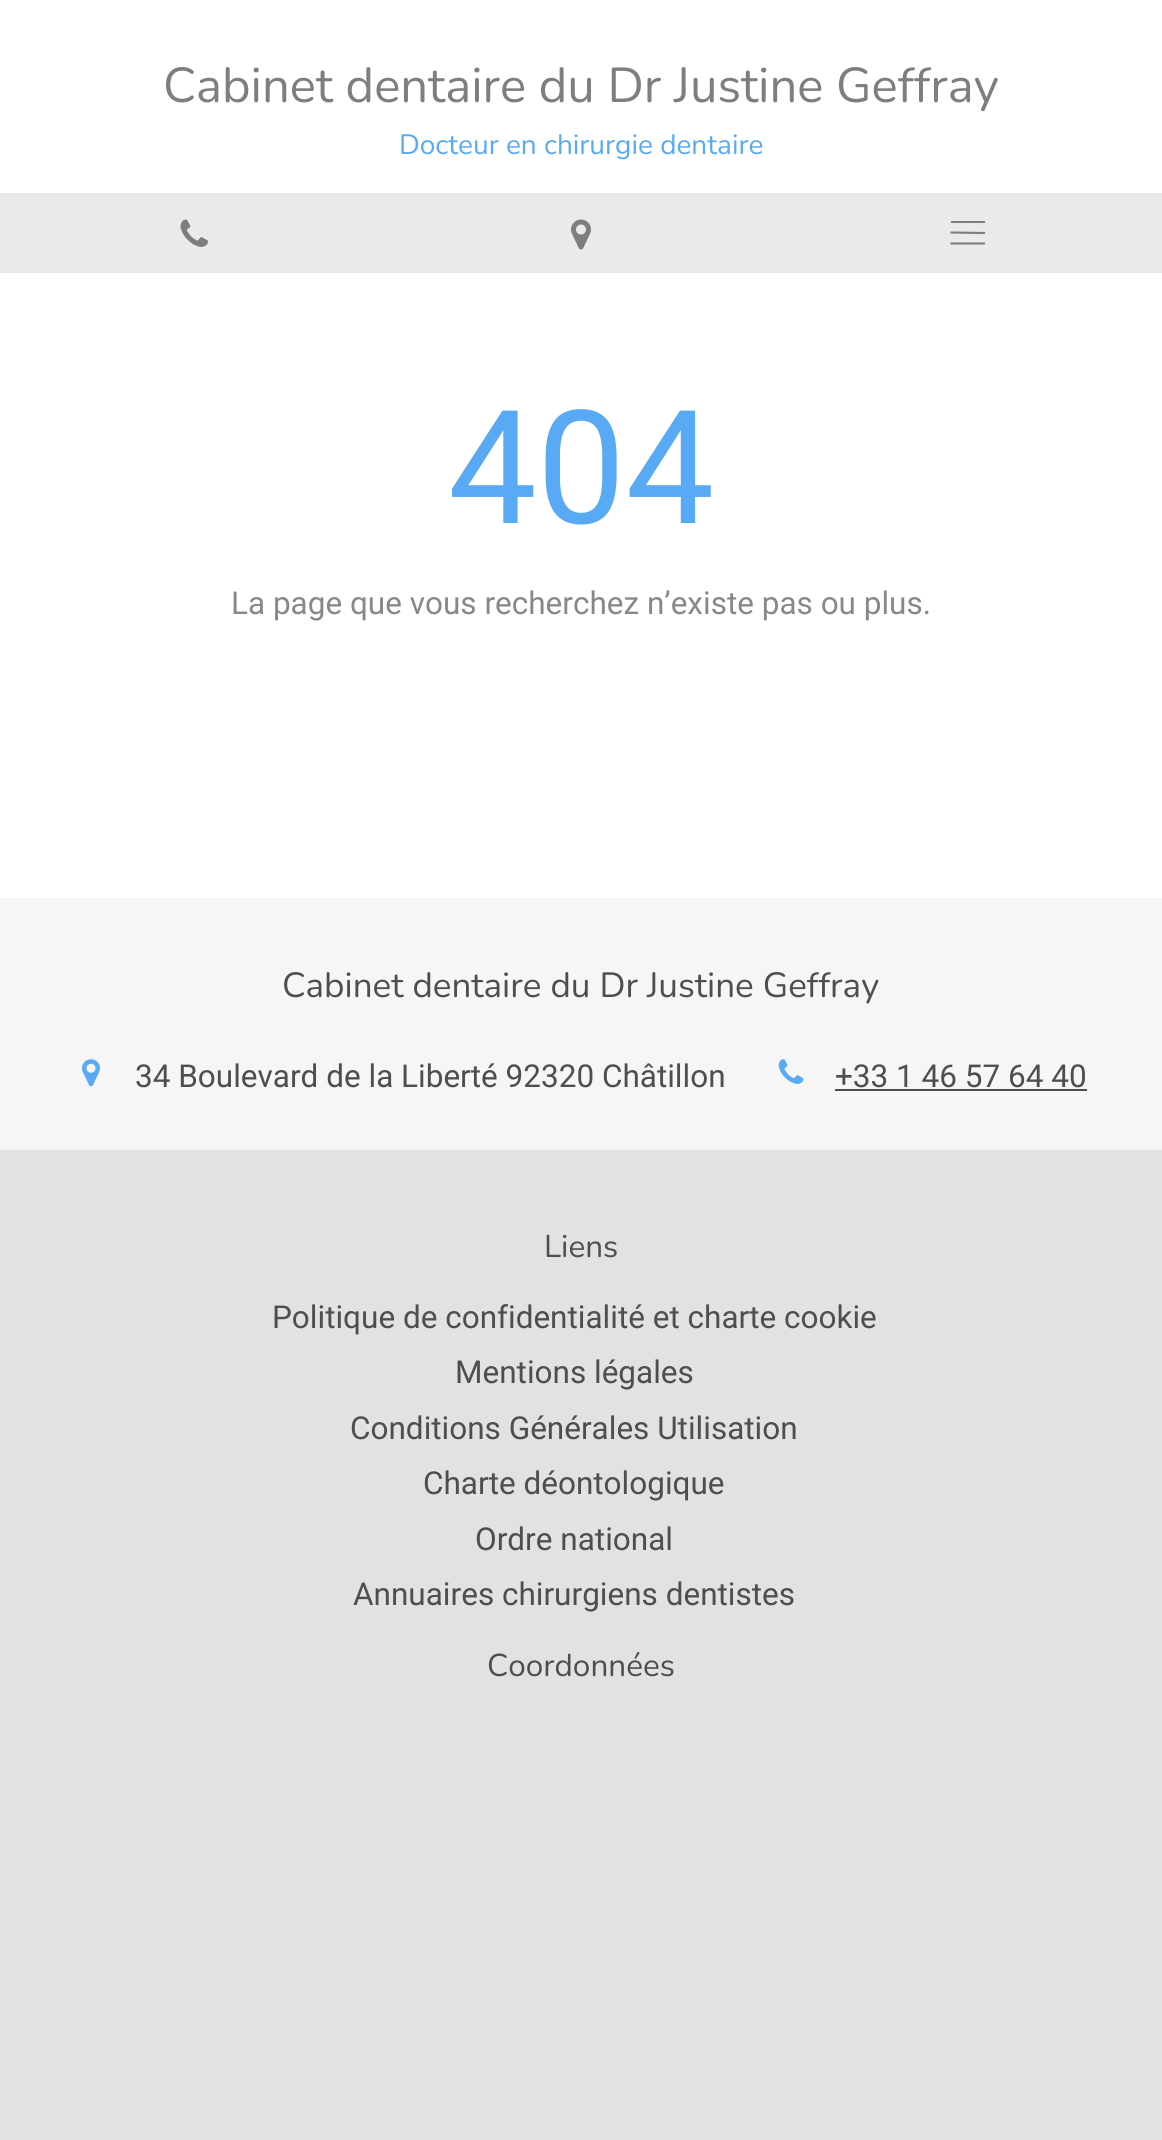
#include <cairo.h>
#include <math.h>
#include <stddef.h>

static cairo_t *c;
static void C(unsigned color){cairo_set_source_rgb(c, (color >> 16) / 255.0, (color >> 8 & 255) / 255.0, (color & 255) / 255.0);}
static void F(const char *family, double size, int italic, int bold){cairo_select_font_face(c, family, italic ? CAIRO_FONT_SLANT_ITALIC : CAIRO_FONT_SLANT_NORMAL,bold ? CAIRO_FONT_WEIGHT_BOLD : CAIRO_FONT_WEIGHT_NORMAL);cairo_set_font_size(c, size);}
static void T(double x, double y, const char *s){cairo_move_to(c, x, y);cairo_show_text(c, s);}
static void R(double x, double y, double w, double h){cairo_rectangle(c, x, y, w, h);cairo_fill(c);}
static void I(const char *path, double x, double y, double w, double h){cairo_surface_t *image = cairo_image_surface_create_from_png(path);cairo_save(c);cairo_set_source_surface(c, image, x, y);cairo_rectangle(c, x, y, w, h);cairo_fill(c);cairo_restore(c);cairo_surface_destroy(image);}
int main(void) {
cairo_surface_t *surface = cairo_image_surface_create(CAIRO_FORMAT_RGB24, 1162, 2140);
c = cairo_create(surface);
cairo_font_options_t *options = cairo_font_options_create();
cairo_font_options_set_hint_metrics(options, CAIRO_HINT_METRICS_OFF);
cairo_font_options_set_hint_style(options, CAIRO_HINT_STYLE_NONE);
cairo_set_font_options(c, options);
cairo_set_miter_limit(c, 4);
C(0xffffff);
cairo_paint(c);
F("Nunito",49,0,0);
C(0x7e7e7e);
T(163,102,"Cabinet dentaire du Dr Justine Geffray");
F("Nunito",28,0,0);
C(0x59aaf4);
T(399,154,"Docteur en chirurgie dentaire");
C(0xeaeaea);
R(0,193,1162,80);
I("1.png",180,219,28,28);
I("2.png",571,219,20,31);
C(0x7e7e7e);
R(951,221,34,2);
cairo_new_path(c);
cairo_move_to(c,950.5,232.5);
cairo_line_to(c,985,233);
cairo_set_line_width(c,2.1);
cairo_stroke(c);
cairo_new_path(c);
cairo_move_to(c,950.5,243.5);
cairo_line_to(c,985,243.5);
cairo_stroke(c);
F("Roboto",158,0,0);
C(0x59aaf4);
T(448,523,"404");
F("Roboto",31.5,0,0);
C(0x888888);
T(231,614,"La page que vous recherchez n’existe pas ou plus.");
C(0xf6f6f6);
R(0,898,1162,252);
F("Nunito",35,0,0);
C(0x4e4e4e);
T(282,997,"Cabinet dentaire du Dr Justine Geffray");
I("3.png",82,1059,18,28);
F("Roboto",31.5,0,0);
T(135,1087,"34 Boulevard de la Liberté 92320 Châtillon");
I("4.png",778,1059,26,25);
T(835,1087,"+33 1 46 57 64 40");
R(835,1089,252,2);
C(0xe2e2e2);
R(0,1150,1162,990);
F("Nunito",31.5,0,0);
C(0x4e4e4e);
T(544,1257,"Liens");
F("Roboto",31.5,0,0);
T(272,1328,"Politique de confidentialité et charte cookie");
T(455,1383,"Mentions légales");
T(350,1439,"Conditions Générales Utilisation");
T(423,1494,"Charte déontologique");
T(475,1550,"Ordre national");
T(353,1605,"Annuaires chirurgiens dentistes");
F("Nunito",31.5,0,0);
T(487,1676,"Coordonnées");
cairo_surface_write_to_png(surface, "o.png");
cairo_font_options_destroy(options);
cairo_destroy(c);
cairo_surface_destroy(surface);
return 0;
}
